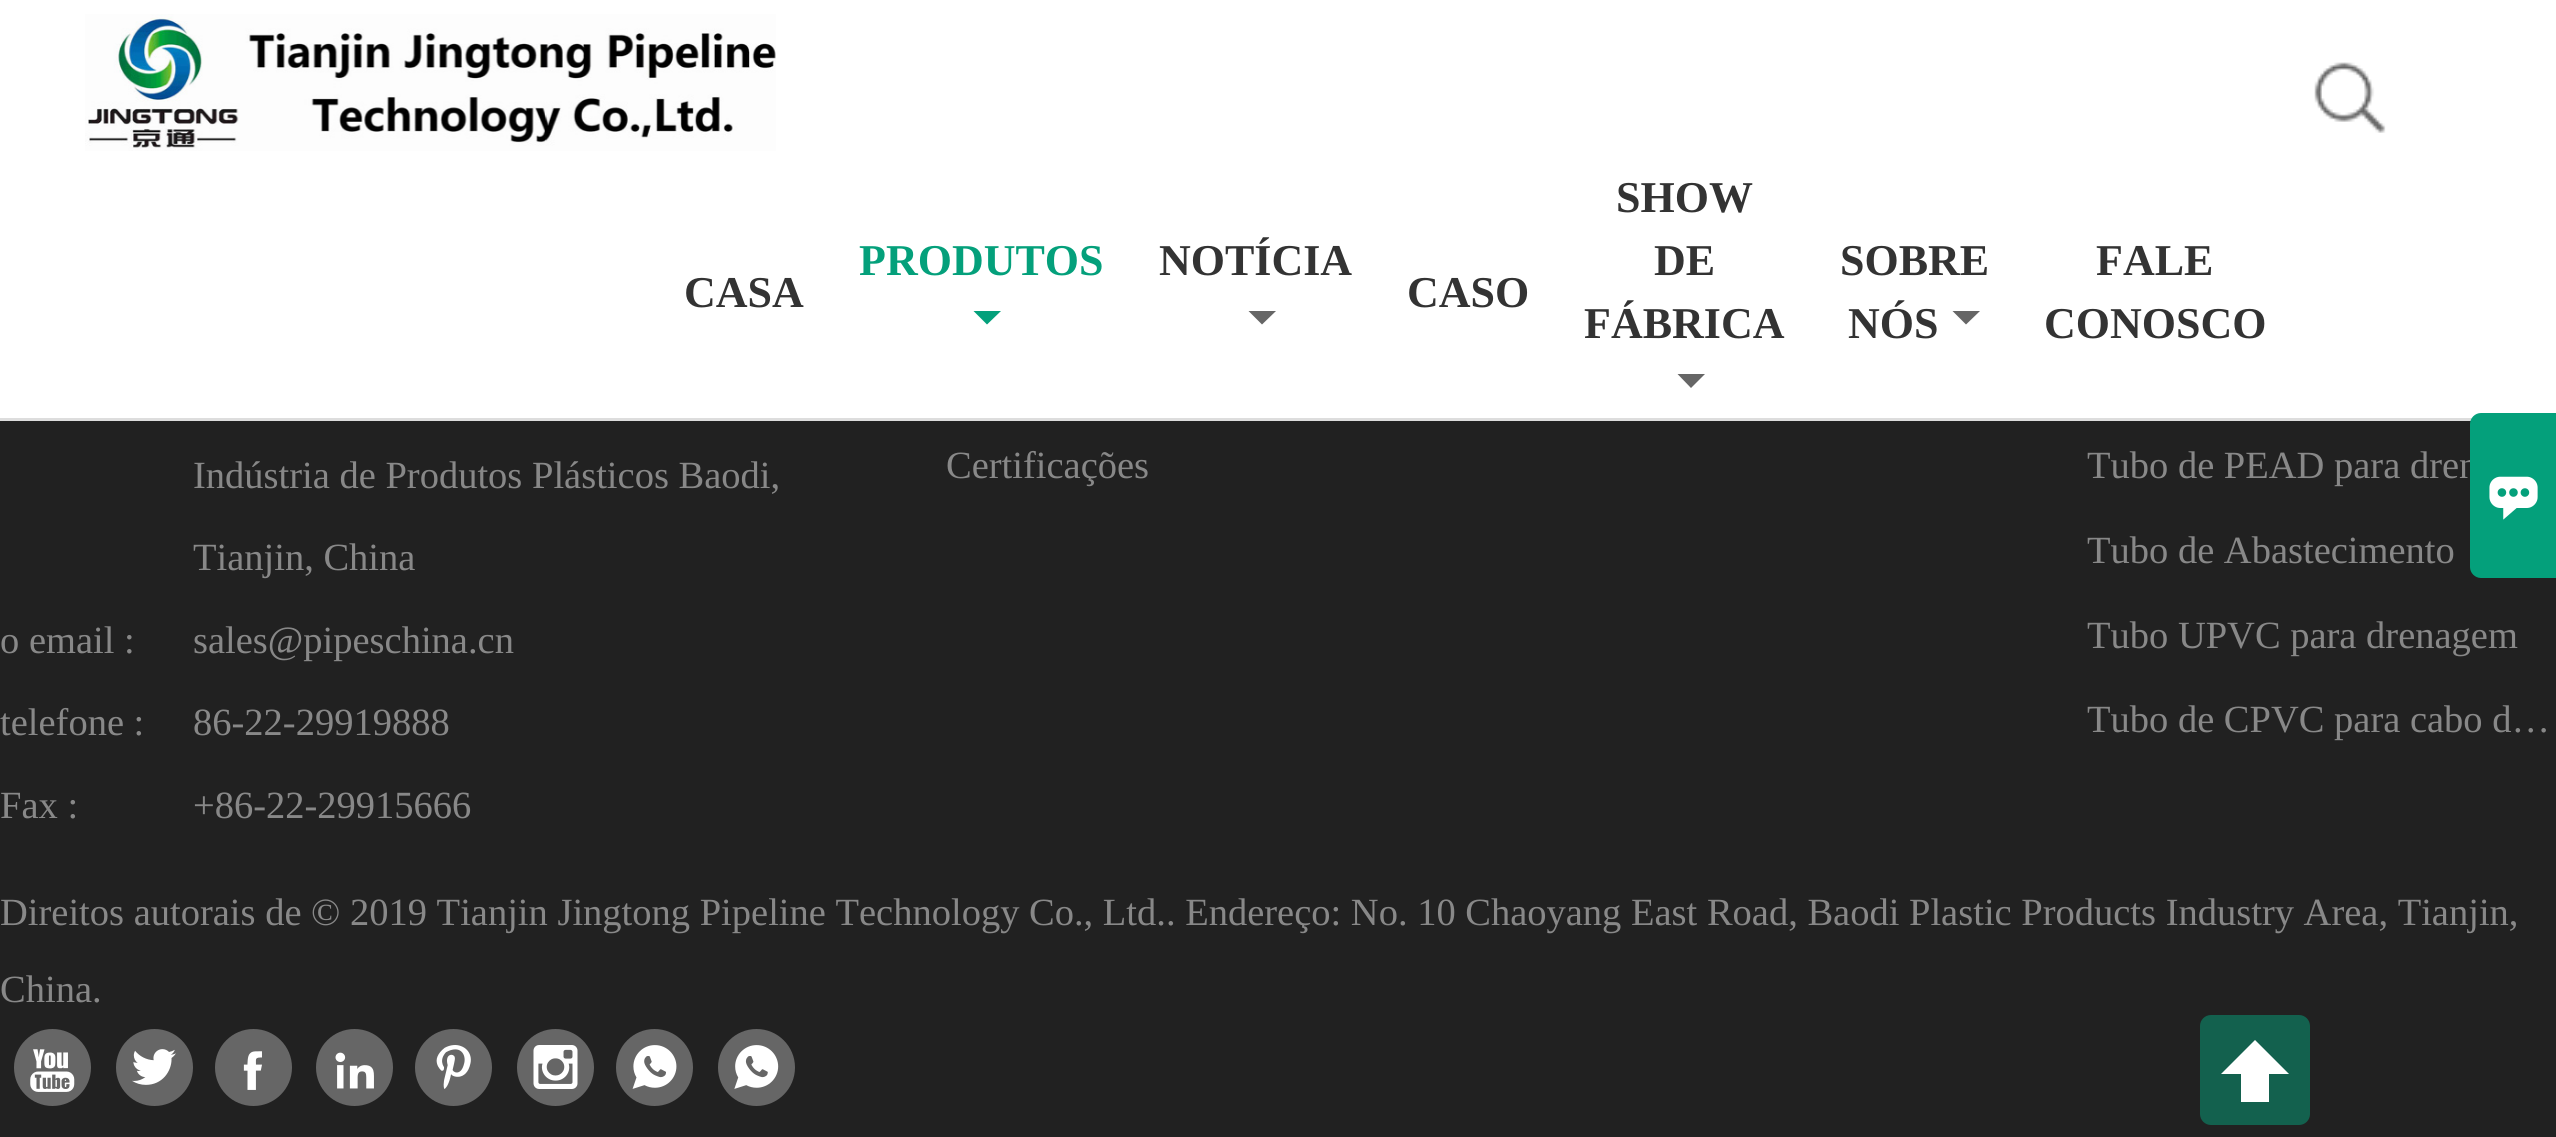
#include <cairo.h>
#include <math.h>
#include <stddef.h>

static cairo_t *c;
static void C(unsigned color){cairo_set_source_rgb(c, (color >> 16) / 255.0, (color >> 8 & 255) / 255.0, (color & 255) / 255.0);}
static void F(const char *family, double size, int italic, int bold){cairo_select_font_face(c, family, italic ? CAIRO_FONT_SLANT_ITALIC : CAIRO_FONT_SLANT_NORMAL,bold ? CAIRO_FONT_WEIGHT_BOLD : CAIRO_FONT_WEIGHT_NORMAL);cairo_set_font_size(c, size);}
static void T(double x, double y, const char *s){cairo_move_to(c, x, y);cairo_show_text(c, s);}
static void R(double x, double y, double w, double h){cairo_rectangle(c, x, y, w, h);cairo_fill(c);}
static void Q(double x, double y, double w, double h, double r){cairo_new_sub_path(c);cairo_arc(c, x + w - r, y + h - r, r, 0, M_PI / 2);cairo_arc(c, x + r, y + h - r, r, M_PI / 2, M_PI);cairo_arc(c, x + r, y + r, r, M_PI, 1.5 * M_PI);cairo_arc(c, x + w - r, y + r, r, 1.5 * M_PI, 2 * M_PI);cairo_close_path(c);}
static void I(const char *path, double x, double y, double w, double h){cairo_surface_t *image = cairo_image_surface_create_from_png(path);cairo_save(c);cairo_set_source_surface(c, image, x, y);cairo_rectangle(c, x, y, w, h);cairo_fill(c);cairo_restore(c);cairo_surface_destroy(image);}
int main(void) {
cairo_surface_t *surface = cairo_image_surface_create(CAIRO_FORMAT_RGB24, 2556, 1137);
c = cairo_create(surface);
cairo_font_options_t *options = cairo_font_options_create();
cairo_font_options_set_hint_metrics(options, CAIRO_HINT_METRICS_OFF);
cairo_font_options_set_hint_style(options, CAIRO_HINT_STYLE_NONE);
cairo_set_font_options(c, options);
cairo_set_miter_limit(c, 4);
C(0x212121);
cairo_paint(c);
C(0xffffff);
R(0,0,2556,418);
C(0xdddddd);
R(0,418,2472,3);
I("1.png",85,14,691,137);
I("2.png",2314,62,72,71);
F("Liberation Serif",44,0,1);
C(0x333333);
T(684,307,"CASA");
C(0x04a07b);
T(859,275,"PRODUTOS");
cairo_new_path(c);
cairo_move_to(c,973.5,311);
cairo_line_to(c,1001,311);
cairo_line_to(c,987,324.5);
cairo_close_path(c);
cairo_fill(c);
C(0x333333);
T(1159,275,"NOTÍCIA");
C(0x666666);
cairo_new_path(c);
cairo_move_to(c,1248.5,311);
cairo_line_to(c,1276,311);
cairo_line_to(c,1262,324.5);
cairo_close_path(c);
cairo_fill(c);
C(0x333333);
T(1407,307,"CASO");
T(1616,212,"SHOW");
T(1654,275,"DE");
T(1584,338,"FÁBRICA");
C(0x666666);
cairo_new_path(c);
cairo_move_to(c,1677.5,374);
cairo_line_to(c,1705,374);
cairo_line_to(c,1691,388);
cairo_close_path(c);
cairo_fill(c);
C(0x333333);
T(1840,275,"SOBRE");
T(1848,338,"NÓS");
C(0x666666);
cairo_new_path(c);
cairo_move_to(c,1952.5,311);
cairo_line_to(c,1980,311);
cairo_line_to(c,1966,324.5);
cairo_close_path(c);
cairo_fill(c);
C(0x333333);
T(2096,275,"FALE");
T(2044,338,"CONOSCO");
F("Liberation Serif",38.5,0,0);
C(0x888888);
T(2087,478,"Tubo de PEAD para dren");
C(0x04a07b);
cairo_new_path(c);
cairo_move_to(c,2481,413);
cairo_line_to(c,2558,413);
cairo_line_to(c,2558,578);
cairo_line_to(c,2481,578);
cairo_curve_to(c,2475,578,2470,573,2470,567);
cairo_line_to(c,2470,424);
cairo_curve_to(c,2470,418,2475,413,2481,413);
cairo_close_path(c);
cairo_fill(c);
I("3.png",2489,476,49,44);
C(0x888888);
T(193,488,"Indústria de Produtos Plásticos Baodi,");
T(193,570,"Tianjin, China");
T(0,653,"o email :");
T(193,653,"sales@pipeschina.cn");
T(0,735,"telefone :");
T(193,735,"86-22-29919888");
T(0,818,"Fax :");
T(193,818,"+86-22-29915666");
T(946,478,"Certificações");
T(2087,563,"Tubo de Abastecimento");
T(2087,648,"Tubo UPVC para drenagem");
T(2087,732,"Tubo de CPVC para cabo d…");
T(0,925,"Direitos autorais de © 2019 Tianjin Jingtong Pipeline Technology Co., Ltd.. Endereço: No. 10 Chaoyang East Road, Baodi Plastic Products Industry Area, Tianjin,");
T(0,1002,"China.");
C(0x666666);
cairo_new_path(c);
cairo_arc(c,52.5,1067.5,38.5,0,2 * M_PI);
cairo_fill(c);
I("4.png",30,1049,45,43);
cairo_arc(c,154.5,1067.5,38.5,0,2 * M_PI);
cairo_fill(c);
I("5.png",132,1049,44,36);
cairo_arc(c,253.5,1067.5,38.5,0,2 * M_PI);
cairo_fill(c);
I("6.png",243,1051,19,39);
cairo_arc(c,354.5,1067.5,38.5,0,2 * M_PI);
cairo_fill(c);
I("7.png",335,1052,39,37);
cairo_arc(c,453.5,1067.5,38.5,0,2 * M_PI);
cairo_fill(c);
I("8.png",436,1045,35,44);
cairo_arc(c,555.5,1067.5,38.5,0,2 * M_PI);
cairo_fill(c);
I("9.png",533,1045,45,44);
cairo_arc(c,654.5,1067.5,38.5,0,2 * M_PI);
cairo_fill(c);
I("10.png",632,1045,45,44);
cairo_arc(c,756.5,1067.5,38.5,0,2 * M_PI);
cairo_fill(c);
I("11.png",734,1045,45,44);
C(0x13614e);
Q(2200,1015,110,110,11);
cairo_fill(c);
C(0xffffff);
cairo_new_path(c);
cairo_move_to(c,2289,1074);
cairo_line_to(c,2255,1040);
cairo_line_to(c,2221,1074);
cairo_line_to(c,2241,1074);
cairo_line_to(c,2241,1102);
cairo_line_to(c,2269,1102);
cairo_line_to(c,2269,1074);
cairo_close_path(c);
cairo_fill(c);
cairo_surface_write_to_png(surface, "o.png");
cairo_font_options_destroy(options);
cairo_destroy(c);
cairo_surface_destroy(surface);
return 0;
}
